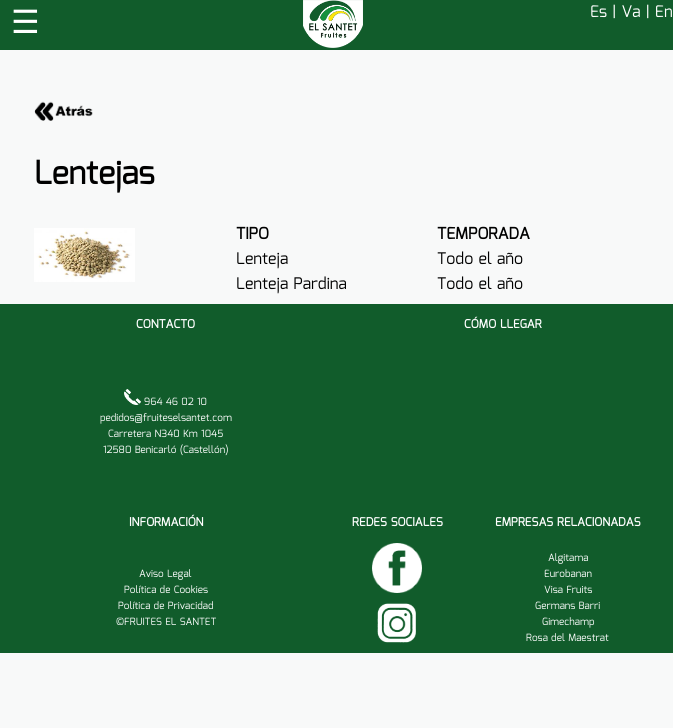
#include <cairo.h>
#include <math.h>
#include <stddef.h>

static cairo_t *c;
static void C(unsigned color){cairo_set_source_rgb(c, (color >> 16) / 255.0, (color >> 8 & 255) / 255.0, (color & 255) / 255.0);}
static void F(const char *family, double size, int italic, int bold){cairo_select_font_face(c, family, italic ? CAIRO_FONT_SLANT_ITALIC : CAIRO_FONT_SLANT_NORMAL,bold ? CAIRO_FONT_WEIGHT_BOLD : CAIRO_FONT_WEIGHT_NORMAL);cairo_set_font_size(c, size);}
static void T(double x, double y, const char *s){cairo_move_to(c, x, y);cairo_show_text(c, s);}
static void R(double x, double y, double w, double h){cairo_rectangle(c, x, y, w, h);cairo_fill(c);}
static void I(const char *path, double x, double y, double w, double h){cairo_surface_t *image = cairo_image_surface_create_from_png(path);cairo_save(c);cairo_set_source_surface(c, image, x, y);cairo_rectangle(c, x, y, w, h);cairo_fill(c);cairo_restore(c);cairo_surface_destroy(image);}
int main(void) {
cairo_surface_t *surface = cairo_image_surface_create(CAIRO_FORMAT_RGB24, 673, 728);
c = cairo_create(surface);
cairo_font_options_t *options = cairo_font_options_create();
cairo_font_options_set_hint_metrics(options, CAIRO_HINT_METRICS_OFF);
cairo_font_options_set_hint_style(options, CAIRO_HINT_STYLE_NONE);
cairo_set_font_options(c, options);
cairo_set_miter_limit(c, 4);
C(0xf8f9f9);
cairo_paint(c);
C(0x115c2b);
R(0,0,673,50);
F("DejaVu Sans",32,0,0);
C(0xffffff);
T(11,33,"☰");
I("1.png",303,0,60,48);
F("Mina",16,0,0);
T(590,17,"Es | Va | En");
I("2.png",34,101,59,20);
F("Mina",32,0,1);
C(0x000000);
T(34,184,"Lentejas");
I("3.png",34,228,101,54);
F("Mina",16,0,1);
T(236,239,"TIPO");
F("Mina",16,0,0);
T(236,264,"Lenteja");
T(236,289,"Lenteja Pardina");
F("Mina",16,0,1);
T(437,239,"TEMPORADA");
F("Mina",16,0,0);
T(437,264,"Todo el año");
T(437,289,"Todo el año");
C(0x115c2b);
R(0,304,673,349);
F("Mina",11.75,0,1);
C(0xffffff);
T(136,328,"CONTACTO");
T(464,328,"CÓMO LLEGAR");
I("4.png",124,389,17,16);
F("Mina",10,0,0);
T(144,405,"964 46 02 10");
T(100,421,"pedidos@fruiteselsantet.com");
T(108,437,"Carretera N340 Km 1045");
T(103,453,"12580 Benicarló (Castellón)");
F("Mina",11.75,0,1);
T(129,526,"INFORMACIÓN");
T(352,526,"REDES SOCIALES");
T(495,526,"EMPRESAS RELACIONADAS");
F("Mina",10,0,0);
T(139,577,"Aviso Legal");
T(124,593,"Política de Cookies");
T(118,609,"Política de Privacidad");
T(116,625,"©FRUITES EL SANTET");
I("5.png",372,543,50,50);
I("6.png",377,603,39,40);
T(548,561,"Algitama");
T(544,577,"Eurobanan");
T(544,593,"Visa Fruits");
T(535,609,"Germans Barri");
T(542,625,"Gimechamp");
T(526,641,"Rosa del Maestrat");
cairo_surface_write_to_png(surface, "o.png");
cairo_font_options_destroy(options);
cairo_destroy(c);
cairo_surface_destroy(surface);
return 0;
}
